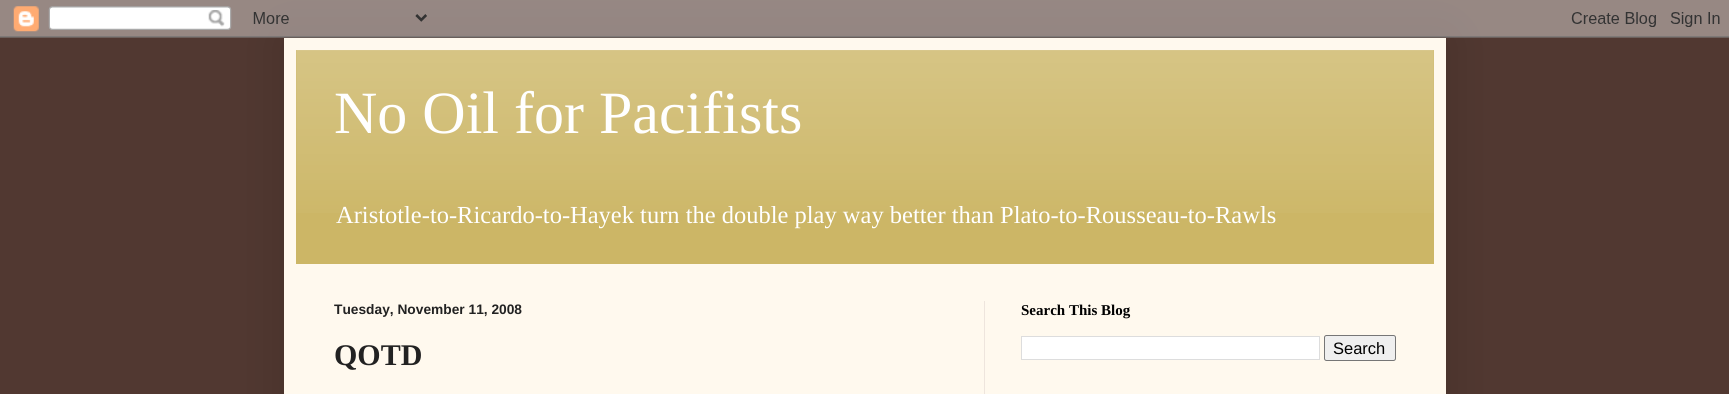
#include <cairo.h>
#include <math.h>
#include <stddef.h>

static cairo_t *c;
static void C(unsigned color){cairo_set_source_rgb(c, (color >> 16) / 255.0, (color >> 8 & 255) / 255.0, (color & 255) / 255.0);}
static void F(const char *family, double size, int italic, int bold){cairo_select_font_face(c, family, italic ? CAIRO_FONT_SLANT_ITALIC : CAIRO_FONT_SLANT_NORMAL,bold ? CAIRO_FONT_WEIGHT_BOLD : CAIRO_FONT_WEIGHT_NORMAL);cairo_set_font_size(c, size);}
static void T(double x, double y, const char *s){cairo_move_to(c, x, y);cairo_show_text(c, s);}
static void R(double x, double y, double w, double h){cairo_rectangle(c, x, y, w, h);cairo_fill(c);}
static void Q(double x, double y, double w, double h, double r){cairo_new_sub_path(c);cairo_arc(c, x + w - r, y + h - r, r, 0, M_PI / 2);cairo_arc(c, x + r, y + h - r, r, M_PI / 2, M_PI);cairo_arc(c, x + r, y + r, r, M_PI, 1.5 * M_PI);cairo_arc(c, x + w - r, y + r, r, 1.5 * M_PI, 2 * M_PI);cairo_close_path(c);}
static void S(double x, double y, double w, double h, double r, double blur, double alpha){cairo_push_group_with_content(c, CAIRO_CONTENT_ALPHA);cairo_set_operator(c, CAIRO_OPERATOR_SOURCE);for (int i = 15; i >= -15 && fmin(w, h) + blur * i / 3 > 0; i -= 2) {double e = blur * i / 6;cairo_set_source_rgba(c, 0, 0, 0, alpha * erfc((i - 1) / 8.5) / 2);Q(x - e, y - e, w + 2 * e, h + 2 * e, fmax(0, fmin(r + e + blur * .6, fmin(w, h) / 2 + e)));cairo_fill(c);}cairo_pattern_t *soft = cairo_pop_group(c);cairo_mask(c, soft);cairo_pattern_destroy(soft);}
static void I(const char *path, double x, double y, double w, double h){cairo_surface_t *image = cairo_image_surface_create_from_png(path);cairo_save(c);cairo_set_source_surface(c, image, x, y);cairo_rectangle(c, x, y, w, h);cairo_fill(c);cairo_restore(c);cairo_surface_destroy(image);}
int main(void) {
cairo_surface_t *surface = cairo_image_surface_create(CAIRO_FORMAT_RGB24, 1729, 394);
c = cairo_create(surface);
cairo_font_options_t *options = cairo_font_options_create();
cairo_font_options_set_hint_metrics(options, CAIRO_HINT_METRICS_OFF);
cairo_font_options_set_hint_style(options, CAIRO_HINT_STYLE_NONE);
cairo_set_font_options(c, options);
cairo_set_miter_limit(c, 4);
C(0x513831);
cairo_paint(c);
C(0x000000);
S(284,38,1162,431,0,25,.15);
I("1.png",0,0,1729,38);
C(0xfff9ee);
R(284,38,1162,356);
C(0xccb666);
R(296,50,1138,214);
I("2.png",296,50,1138,163);
F("Liberation Serif",60,0,0);
C(0xffffff);
T(334,133,"No Oil for Pacifists");
F("Liberation Serif",24.5,0,0);
T(336,223,"Aristotle-to-Ricardo-to-Hayek turn the double play way better than Plato-to-Rousseau-to-Rawls");
C(0xeee5dd);
R(984,301,1,93);
F("Liberation Sans",13.75,0,1);
C(0x222222);
T(334,314,"Tuesday, November 11, 2008");
F("Liberation Serif",30,0,1);
T(334,365,"QOTD");
F("Liberation Serif",15,0,1);
C(0x000000);
T(1021,315,"Search This Blog");
C(0xffffff);
cairo_rectangle(c,1021.5,336.5,298,23);
cairo_fill_preserve(c);
C(0xdddddd);
cairo_set_line_width(c,1);
cairo_stroke(c);
C(0xefefef);
Q(1324.5,335.5,71,25,2);
cairo_fill_preserve(c);
C(0x767676);
cairo_stroke(c);
F("Liberation Sans",16.5,0,0);
C(0x000000);
T(1333,354,"Search");
cairo_surface_write_to_png(surface, "o.png");
cairo_font_options_destroy(options);
cairo_destroy(c);
cairo_surface_destroy(surface);
return 0;
}
